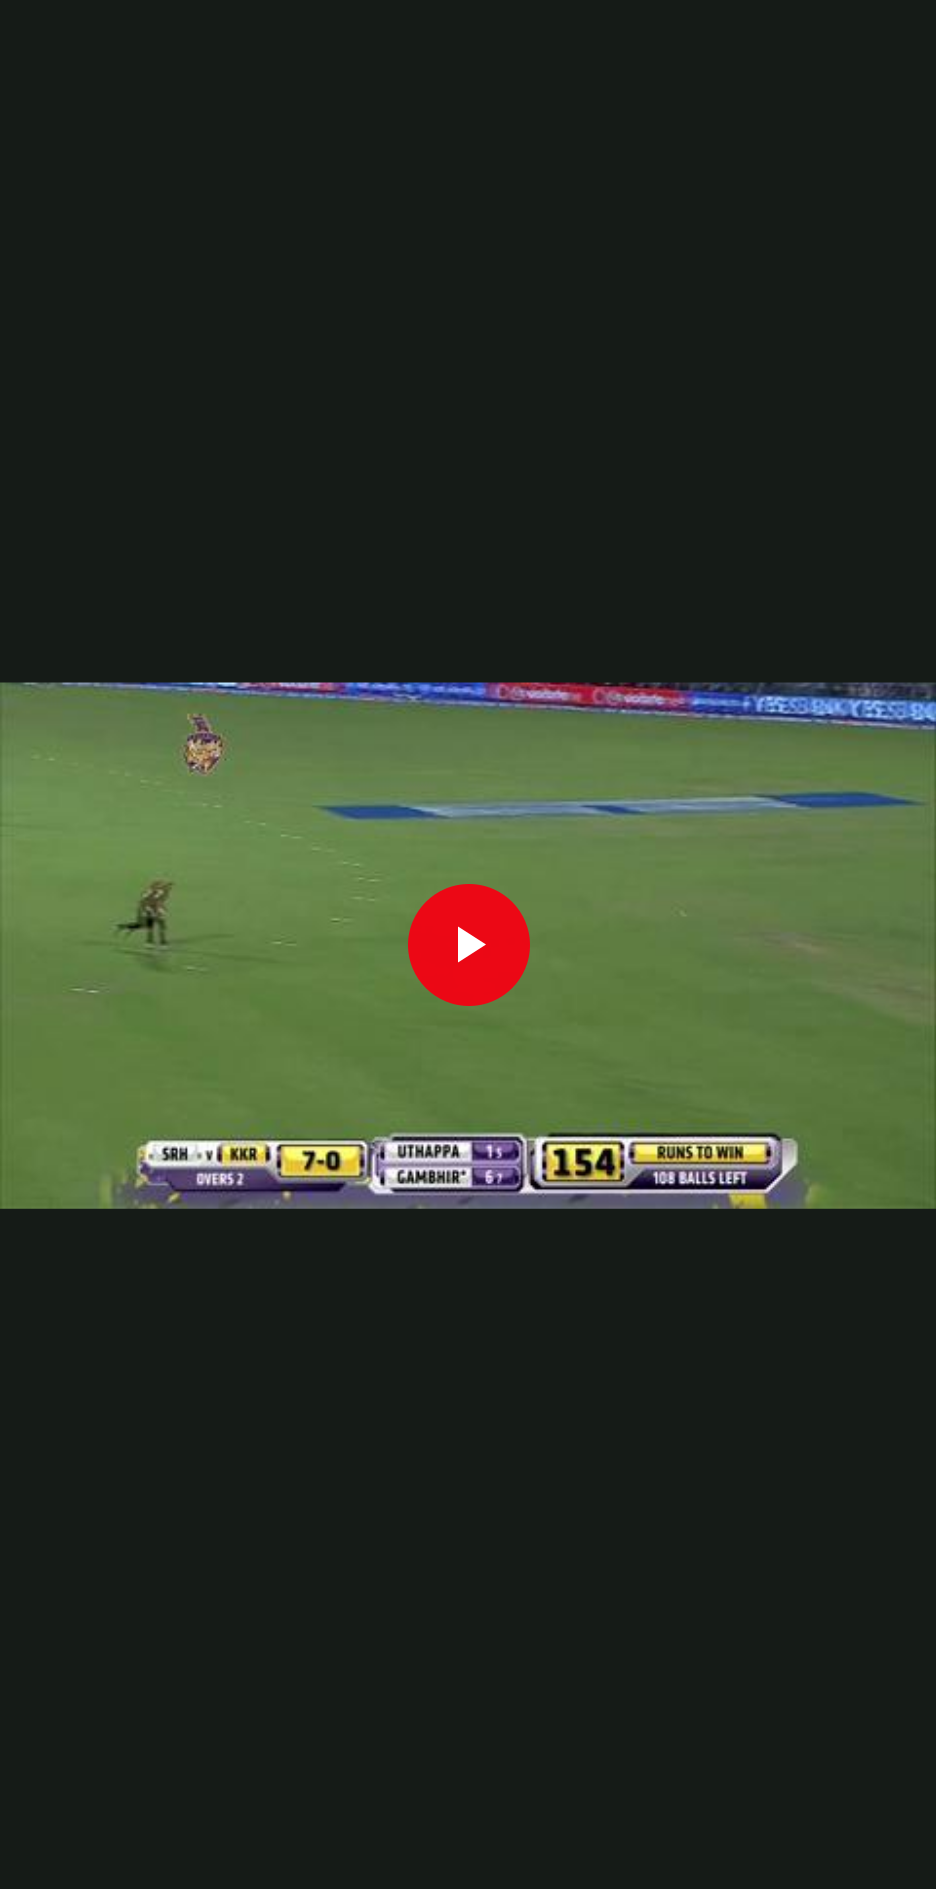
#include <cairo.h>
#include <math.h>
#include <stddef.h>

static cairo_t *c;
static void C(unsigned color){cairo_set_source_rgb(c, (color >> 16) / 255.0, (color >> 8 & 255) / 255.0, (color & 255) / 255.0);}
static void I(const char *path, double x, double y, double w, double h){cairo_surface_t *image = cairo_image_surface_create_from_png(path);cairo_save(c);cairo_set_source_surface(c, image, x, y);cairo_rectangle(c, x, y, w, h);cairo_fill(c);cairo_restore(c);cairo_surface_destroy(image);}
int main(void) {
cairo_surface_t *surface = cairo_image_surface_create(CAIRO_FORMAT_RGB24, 936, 1889);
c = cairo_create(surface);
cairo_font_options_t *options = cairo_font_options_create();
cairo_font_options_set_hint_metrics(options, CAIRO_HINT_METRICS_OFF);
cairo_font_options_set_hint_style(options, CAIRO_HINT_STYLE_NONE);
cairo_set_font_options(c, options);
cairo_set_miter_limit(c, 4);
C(0x151b17);
cairo_paint(c);
I("1.png",0,682,936,527);
cairo_set_source_rgba(c,0.953,0.012,0.075,0.95);
cairo_arc(c,469,945,61,0,2 * M_PI);
cairo_fill(c);
C(0xffffff);
cairo_new_path(c);
cairo_move_to(c,458,926.5);
cairo_line_to(c,458,962.5);
cairo_line_to(c,486,944.5);
cairo_close_path(c);
cairo_fill(c);
cairo_surface_write_to_png(surface, "o.png");
cairo_font_options_destroy(options);
cairo_destroy(c);
cairo_surface_destroy(surface);
return 0;
}
